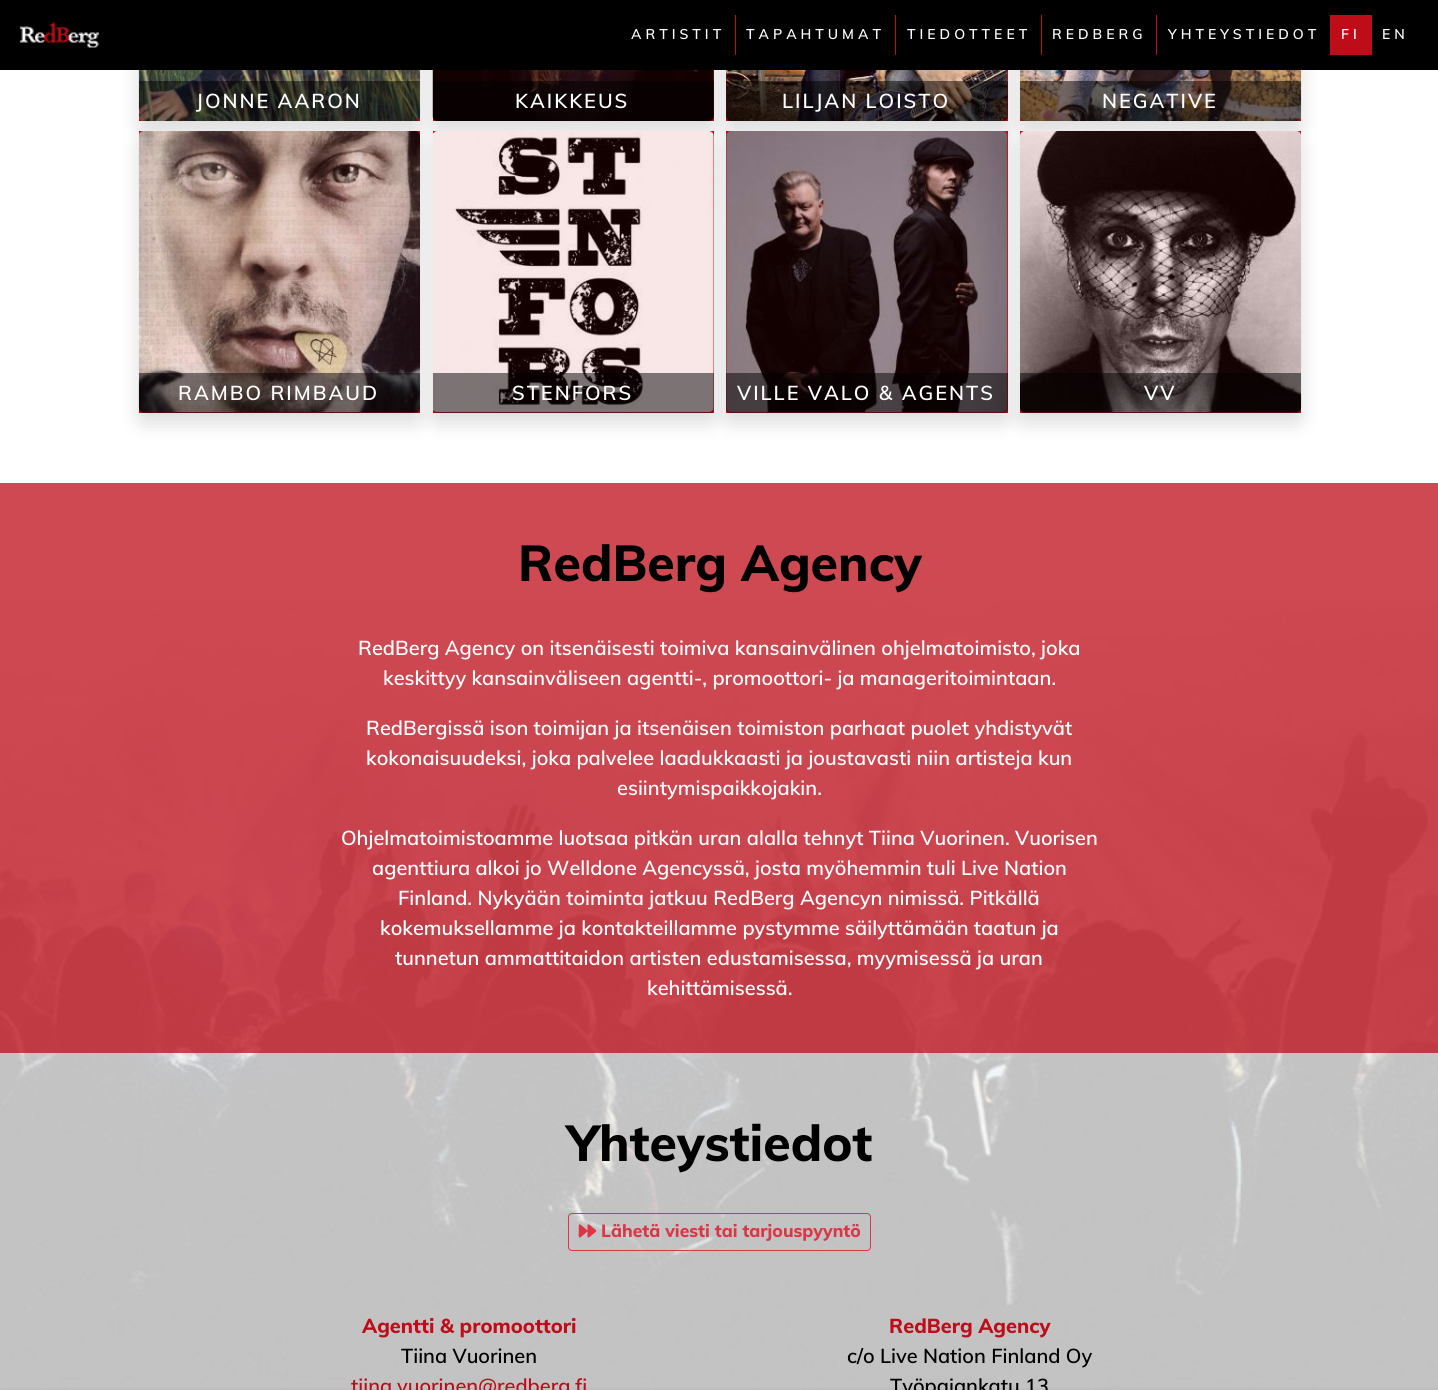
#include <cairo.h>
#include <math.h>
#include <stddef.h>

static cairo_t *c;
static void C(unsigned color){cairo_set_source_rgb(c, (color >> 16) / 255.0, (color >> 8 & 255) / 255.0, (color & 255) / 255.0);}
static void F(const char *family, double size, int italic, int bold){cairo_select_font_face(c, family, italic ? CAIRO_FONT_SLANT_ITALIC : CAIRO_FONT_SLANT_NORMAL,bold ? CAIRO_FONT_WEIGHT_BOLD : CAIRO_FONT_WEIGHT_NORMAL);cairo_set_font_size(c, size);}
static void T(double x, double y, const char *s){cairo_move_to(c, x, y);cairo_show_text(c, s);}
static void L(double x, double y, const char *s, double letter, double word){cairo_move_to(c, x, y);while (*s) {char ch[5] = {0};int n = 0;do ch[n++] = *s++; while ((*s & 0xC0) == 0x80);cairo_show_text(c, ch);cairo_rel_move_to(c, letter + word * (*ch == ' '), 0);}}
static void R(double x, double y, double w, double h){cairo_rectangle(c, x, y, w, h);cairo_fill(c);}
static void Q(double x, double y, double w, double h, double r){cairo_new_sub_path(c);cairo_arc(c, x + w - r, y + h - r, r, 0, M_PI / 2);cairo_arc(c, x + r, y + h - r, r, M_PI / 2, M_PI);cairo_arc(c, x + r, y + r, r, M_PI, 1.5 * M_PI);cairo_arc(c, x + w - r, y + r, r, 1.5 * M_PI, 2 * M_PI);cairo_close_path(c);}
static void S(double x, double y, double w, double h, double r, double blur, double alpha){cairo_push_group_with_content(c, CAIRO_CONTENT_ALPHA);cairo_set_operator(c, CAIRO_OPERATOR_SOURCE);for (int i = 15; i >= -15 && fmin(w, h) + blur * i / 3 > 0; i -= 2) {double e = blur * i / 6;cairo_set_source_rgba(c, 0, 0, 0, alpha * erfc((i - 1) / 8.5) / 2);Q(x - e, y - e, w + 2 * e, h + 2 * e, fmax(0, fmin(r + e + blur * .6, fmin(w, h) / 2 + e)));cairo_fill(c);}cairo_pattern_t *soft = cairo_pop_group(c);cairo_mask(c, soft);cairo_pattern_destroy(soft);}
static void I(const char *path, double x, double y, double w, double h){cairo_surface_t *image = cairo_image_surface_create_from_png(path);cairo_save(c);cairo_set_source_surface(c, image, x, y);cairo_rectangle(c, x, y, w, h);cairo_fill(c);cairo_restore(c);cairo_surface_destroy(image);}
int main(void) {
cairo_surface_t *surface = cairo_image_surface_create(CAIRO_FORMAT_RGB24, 1438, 1390);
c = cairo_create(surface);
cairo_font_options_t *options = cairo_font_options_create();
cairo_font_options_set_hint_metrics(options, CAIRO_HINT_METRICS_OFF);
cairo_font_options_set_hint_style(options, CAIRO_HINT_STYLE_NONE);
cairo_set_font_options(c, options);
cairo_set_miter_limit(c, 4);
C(0xffffff);
cairo_paint(c);
I("1.png",0,598,1438,792);
C(0xbe0d19);
R(139,70,281,51);
cairo_save(c);
cairo_set_fill_rule(c,CAIRO_FILL_RULE_EVEN_ODD);
cairo_new_path(c);
cairo_move_to(c,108,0);
cairo_line_to(c,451,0);
cairo_line_to(c,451,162);
cairo_line_to(c,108,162);
cairo_close_path(c);
cairo_move_to(c,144,-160);
cairo_line_to(c,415,-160);
cairo_curve_to(c,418,-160,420,-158,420,-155);
cairo_line_to(c,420,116);
cairo_curve_to(c,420,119,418,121,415,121);
cairo_line_to(c,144,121);
cairo_curve_to(c,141,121,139,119,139,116);
cairo_line_to(c,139,-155);
cairo_curve_to(c,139,-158,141,-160,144,-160);
cairo_close_path(c);
cairo_clip(c);
C(0x000000);
S(139,-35,281,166,5,10,.14);
cairo_restore(c);
I("3.png",138,70,282,51);
cairo_set_source_rgba(c,0,0,0,0.5);
cairo_new_path(c);
cairo_move_to(c,139,81);
cairo_line_to(c,420,81);
cairo_line_to(c,420,116);
cairo_curve_to(c,420,119,418,121,415,121);
cairo_line_to(c,144,121);
cairo_curve_to(c,141,121,139,119,139,116);
cairo_close_path(c);
cairo_fill(c);
C(0xbe0d19);
R(433,70,281,51);
cairo_save(c);
cairo_set_fill_rule(c,CAIRO_FILL_RULE_EVEN_ODD);
cairo_new_path(c);
cairo_move_to(c,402,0);
cairo_line_to(c,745,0);
cairo_line_to(c,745,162);
cairo_line_to(c,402,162);
cairo_close_path(c);
cairo_move_to(c,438,-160);
cairo_line_to(c,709,-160);
cairo_curve_to(c,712,-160,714,-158,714,-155);
cairo_line_to(c,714,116);
cairo_curve_to(c,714,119,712,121,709,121);
cairo_line_to(c,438,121);
cairo_curve_to(c,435,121,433,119,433,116);
cairo_line_to(c,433,-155);
cairo_curve_to(c,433,-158,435,-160,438,-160);
cairo_close_path(c);
cairo_clip(c);
C(0x000000);
S(433,-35,281,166,5,10,.14);
cairo_restore(c);
I("4.png",432,70,282,51);
cairo_set_source_rgba(c,0,0,0,0.5);
cairo_new_path(c);
cairo_move_to(c,433,81);
cairo_line_to(c,714,81);
cairo_line_to(c,714,116);
cairo_curve_to(c,714,119,712,121,709,121);
cairo_line_to(c,438,121);
cairo_curve_to(c,435,121,433,119,433,116);
cairo_close_path(c);
cairo_fill(c);
C(0xbe0d19);
R(726,70,282,51);
cairo_save(c);
cairo_set_fill_rule(c,CAIRO_FILL_RULE_EVEN_ODD);
cairo_new_path(c);
cairo_move_to(c,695,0);
cairo_line_to(c,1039,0);
cairo_line_to(c,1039,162);
cairo_line_to(c,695,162);
cairo_close_path(c);
cairo_move_to(c,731,-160);
cairo_line_to(c,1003,-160);
cairo_curve_to(c,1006,-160,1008,-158,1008,-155);
cairo_line_to(c,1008,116);
cairo_curve_to(c,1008,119,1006,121,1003,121);
cairo_line_to(c,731,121);
cairo_curve_to(c,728,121,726,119,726,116);
cairo_line_to(c,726,-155);
cairo_curve_to(c,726,-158,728,-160,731,-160);
cairo_close_path(c);
cairo_clip(c);
C(0x000000);
S(726,-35,282,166,5,10,.14);
cairo_restore(c);
I("5.png",726,70,282,51);
cairo_set_source_rgba(c,0,0,0,0.5);
cairo_new_path(c);
cairo_move_to(c,726,81);
cairo_line_to(c,1008,81);
cairo_line_to(c,1008,116);
cairo_curve_to(c,1008,119,1006,121,1003,121);
cairo_line_to(c,731,121);
cairo_curve_to(c,728,121,726,119,726,116);
cairo_close_path(c);
cairo_fill(c);
C(0xbe0d19);
R(1020,70,281,51);
cairo_save(c);
cairo_set_fill_rule(c,CAIRO_FILL_RULE_EVEN_ODD);
cairo_new_path(c);
cairo_move_to(c,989,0);
cairo_line_to(c,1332,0);
cairo_line_to(c,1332,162);
cairo_line_to(c,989,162);
cairo_close_path(c);
cairo_move_to(c,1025,-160);
cairo_line_to(c,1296,-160);
cairo_curve_to(c,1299,-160,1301,-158,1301,-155);
cairo_line_to(c,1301,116);
cairo_curve_to(c,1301,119,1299,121,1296,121);
cairo_line_to(c,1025,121);
cairo_curve_to(c,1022,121,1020,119,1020,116);
cairo_line_to(c,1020,-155);
cairo_curve_to(c,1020,-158,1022,-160,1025,-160);
cairo_close_path(c);
cairo_clip(c);
C(0x000000);
S(1020,-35,281,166,5,10,.14);
cairo_restore(c);
C(0x000000);
R(0,0,1438,70);
I("2.png",20,22,79,26);
C(0xbe0d19);
R(735,15,1,40);
F("Muli SemiBold",14,0,0);
C(0xffffff);
L(631,39,"ARTISTIT",4,0);
C(0xbe0d19);
R(895,15,1,40);
C(0xffffff);
L(746,39,"TAPAHTUMAT",4,0);
C(0xbe0d19);
R(1041,15,1,40);
C(0xffffff);
L(907,39,"TIEDOTTEET",4,0);
C(0xbe0d19);
R(1156,15,1,40);
C(0xffffff);
L(1052,39,"REDBERG",4,0);
C(0xbe0d19);
R(1330,15,1,40);
C(0xffffff);
L(1168,39,"YHTEYSTIEDOT",4,0);
C(0xbe0d19);
R(1331,15,41,40);
C(0xffffff);
L(1341,39,"FI",4,0);
L(1382,39,"EN",4,0);
F("Muli SemiBold",20,0,0);
L(196,108,"JONNE AARON",2,0);
L(515,108,"KAIKKEUS",2,0);
L(782,108,"LILJAN LOISTO",2,0);
I("6.png",1020,70,282,51);
cairo_set_source_rgba(c,0,0,0,0.5);
cairo_new_path(c);
cairo_move_to(c,1020,81);
cairo_line_to(c,1301,81);
cairo_line_to(c,1301,116);
cairo_curve_to(c,1301,119,1299,121,1296,121);
cairo_line_to(c,1025,121);
cairo_curve_to(c,1022,121,1020,119,1020,116);
cairo_close_path(c);
cairo_fill(c);
C(0xffffff);
L(1102,108,"NEGATIVE",2,0);
C(0xbe0d19);
R(139,131,281,282);
cairo_save(c);
cairo_set_fill_rule(c,CAIRO_FILL_RULE_EVEN_ODD);
cairo_new_path(c);
cairo_move_to(c,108,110);
cairo_line_to(c,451,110);
cairo_line_to(c,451,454);
cairo_line_to(c,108,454);
cairo_close_path(c);
cairo_move_to(c,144,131);
cairo_line_to(c,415,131);
cairo_curve_to(c,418,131,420,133,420,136);
cairo_line_to(c,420,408);
cairo_curve_to(c,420,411,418,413,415,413);
cairo_line_to(c,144,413);
cairo_curve_to(c,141,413,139,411,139,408);
cairo_line_to(c,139,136);
cairo_curve_to(c,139,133,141,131,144,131);
cairo_close_path(c);
cairo_clip(c);
C(0x000000);
S(139,141,281,282,5,10,.14);
cairo_restore(c);
I("7.png",138,131,282,282);
cairo_set_source_rgba(c,0,0,0,0.5);
cairo_new_path(c);
cairo_move_to(c,139,373);
cairo_line_to(c,420,373);
cairo_line_to(c,420,408);
cairo_curve_to(c,420,411,418,413,415,413);
cairo_line_to(c,144,413);
cairo_curve_to(c,141,413,139,411,139,408);
cairo_close_path(c);
cairo_fill(c);
C(0xffffff);
L(178,400,"RAMBO RIMBAUD",2,0);
C(0xbe0d19);
R(433,131,281,282);
cairo_save(c);
cairo_set_fill_rule(c,CAIRO_FILL_RULE_EVEN_ODD);
cairo_new_path(c);
cairo_move_to(c,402,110);
cairo_line_to(c,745,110);
cairo_line_to(c,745,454);
cairo_line_to(c,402,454);
cairo_close_path(c);
cairo_move_to(c,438,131);
cairo_line_to(c,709,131);
cairo_curve_to(c,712,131,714,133,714,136);
cairo_line_to(c,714,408);
cairo_curve_to(c,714,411,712,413,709,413);
cairo_line_to(c,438,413);
cairo_curve_to(c,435,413,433,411,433,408);
cairo_line_to(c,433,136);
cairo_curve_to(c,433,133,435,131,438,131);
cairo_close_path(c);
cairo_clip(c);
C(0x000000);
S(433,141,281,282,5,10,.14);
cairo_restore(c);
I("8.png",433,131,281,282);
cairo_set_source_rgba(c,0,0,0,0.5);
cairo_new_path(c);
cairo_move_to(c,433,373);
cairo_line_to(c,714,373);
cairo_line_to(c,714,408);
cairo_curve_to(c,714,411,712,413,709,413);
cairo_line_to(c,438,413);
cairo_curve_to(c,435,413,433,411,433,408);
cairo_close_path(c);
cairo_fill(c);
C(0xffffff);
L(512,400,"STENFORS",2,0);
C(0xbe0d19);
R(726,131,282,282);
cairo_save(c);
cairo_set_fill_rule(c,CAIRO_FILL_RULE_EVEN_ODD);
cairo_new_path(c);
cairo_move_to(c,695,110);
cairo_line_to(c,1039,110);
cairo_line_to(c,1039,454);
cairo_line_to(c,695,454);
cairo_close_path(c);
cairo_move_to(c,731,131);
cairo_line_to(c,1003,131);
cairo_curve_to(c,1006,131,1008,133,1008,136);
cairo_line_to(c,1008,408);
cairo_curve_to(c,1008,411,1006,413,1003,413);
cairo_line_to(c,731,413);
cairo_curve_to(c,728,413,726,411,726,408);
cairo_line_to(c,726,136);
cairo_curve_to(c,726,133,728,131,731,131);
cairo_close_path(c);
cairo_clip(c);
C(0x000000);
S(726,141,282,282,5,10,.14);
cairo_restore(c);
I("9.png",726,131,282,282);
cairo_set_source_rgba(c,0,0,0,0.5);
cairo_new_path(c);
cairo_move_to(c,726,373);
cairo_line_to(c,1008,373);
cairo_line_to(c,1008,408);
cairo_curve_to(c,1008,411,1006,413,1003,413);
cairo_line_to(c,731,413);
cairo_curve_to(c,728,413,726,411,726,408);
cairo_close_path(c);
cairo_fill(c);
C(0xffffff);
L(737,400,"VILLE VALO & AGENTS",2,0);
C(0xbe0d19);
R(1020,131,281,282);
cairo_save(c);
cairo_set_fill_rule(c,CAIRO_FILL_RULE_EVEN_ODD);
cairo_new_path(c);
cairo_move_to(c,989,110);
cairo_line_to(c,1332,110);
cairo_line_to(c,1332,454);
cairo_line_to(c,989,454);
cairo_close_path(c);
cairo_move_to(c,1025,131);
cairo_line_to(c,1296,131);
cairo_curve_to(c,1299,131,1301,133,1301,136);
cairo_line_to(c,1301,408);
cairo_curve_to(c,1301,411,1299,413,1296,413);
cairo_line_to(c,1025,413);
cairo_curve_to(c,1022,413,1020,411,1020,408);
cairo_line_to(c,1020,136);
cairo_curve_to(c,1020,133,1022,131,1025,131);
cairo_close_path(c);
cairo_clip(c);
C(0x000000);
S(1020,141,281,282,5,10,.14);
cairo_restore(c);
I("10.png",1020,131,282,282);
cairo_set_source_rgba(c,0,0,0,0.5);
cairo_new_path(c);
cairo_move_to(c,1020,373);
cairo_line_to(c,1301,373);
cairo_line_to(c,1301,408);
cairo_curve_to(c,1301,411,1299,413,1296,413);
cairo_line_to(c,1025,413);
cairo_curve_to(c,1022,413,1020,411,1020,408);
cairo_close_path(c);
cairo_fill(c);
C(0xffffff);
L(1144,400,"VV",2,0);
cairo_set_source_rgba(c,0.745,0.051,0.098,0.75);
R(0,483,1438,570);
F("Muli ExtraBold",50,0,0);
C(0x000000);
T(518,581,"RedBerg Agency");
F("Muli SemiBold",20,0,0);
C(0xffffff);
T(358,655,"RedBerg Agency on itsenäisesti toimiva kansainvälinen ohjelmatoimisto, joka");
T(383,685,"keskittyy kansainväliseen agentti-, promoottori- ja manageritoimintaan.");
T(366,735,"RedBergissä ison toimijan ja itsenäisen toimiston parhaat puolet yhdistyvät");
T(366,765,"kokonaisuudeksi, joka palvelee laadukkaasti ja joustavasti niin artisteja kun");
T(617,795,"esiintymispaikkojakin.");
T(341,845,"Ohjelmatoimistoamme luotsaa pitkän uran alalla tehnyt Tiina Vuorinen. Vuorisen");
T(372,875,"agenttiura alkoi jo Welldone Agencyssä, josta myöhemmin tuli Live Nation");
T(398,905,"Finland. Nykyään toiminta jatkuu RedBerg Agencyn nimissä. Pitkällä");
T(380,935,"kokemuksellamme ja kontakteillamme pystymme säilyttämään taatun ja");
T(395,965,"tunnetun ammattitaidon artisten edustamisessa, myymisessä ja uran");
T(647,995,"kehittämisessä.");
F("Muli ExtraBold",50,0,0);
C(0x000000);
T(567,1161,"Yhteystiedot");
Q(568.5,1213.5,302,37,3.5);
C(0xdc3545);
cairo_set_line_width(c,1);
cairo_stroke(c);
I("11.png",578,1224,19,14);
F("Muli ExtraBold",17.5,0,0);
T(601,1237,"Lähetä viesti tai tarjouspyyntö");
F("Muli ExtraBold",20,0,0);
C(0xbe0d19);
T(362,1333,"Agentti & promoottori");
F("Muli SemiBold",20,0,0);
C(0x000000);
T(401,1363,"Tiina Vuorinen");
C(0xbe0d19);
T(351,1393,"tiina.vuorinen@redberg.fi");
F("Muli ExtraBold",20,0,0);
T(889,1333,"RedBerg Agency");
F("Muli SemiBold",20,0,0);
C(0x000000);
T(847,1363,"c/o Live Nation Finland Oy");
T(890,1393,"Työpajankatu 13");
cairo_surface_write_to_png(surface, "o.png");
cairo_font_options_destroy(options);
cairo_destroy(c);
cairo_surface_destroy(surface);
return 0;
}
